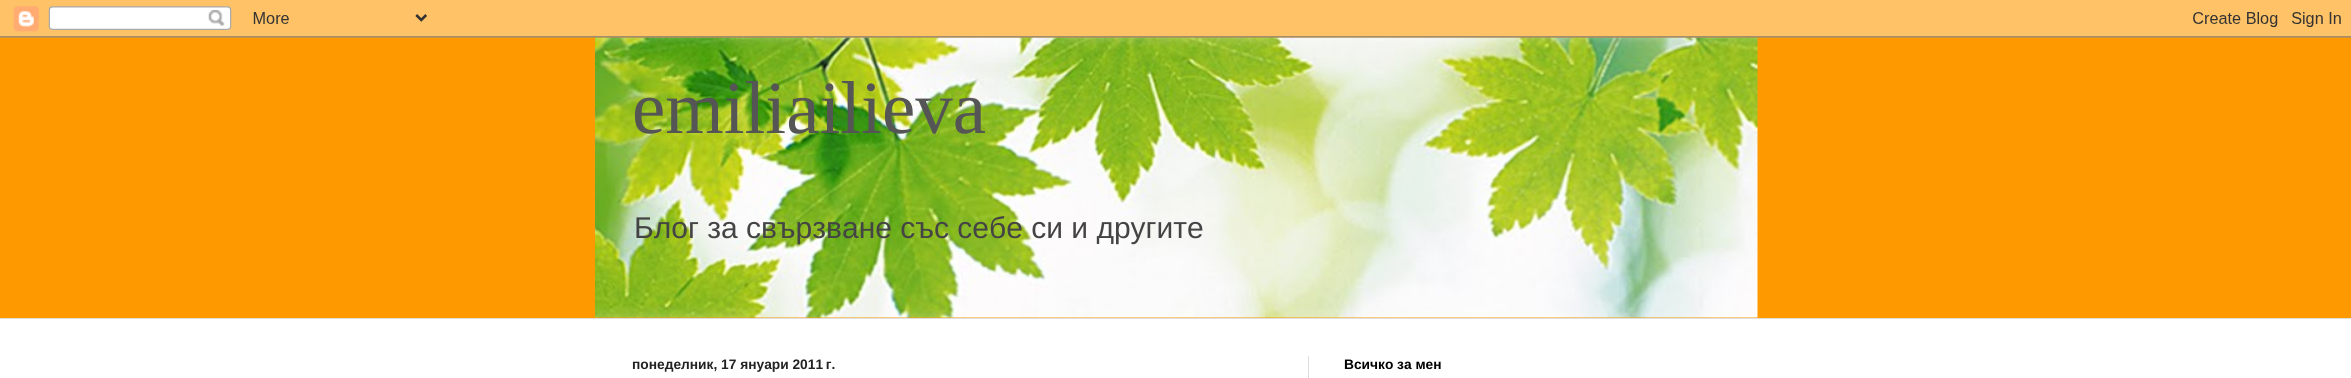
#include <cairo.h>
#include <math.h>
#include <stddef.h>

static cairo_t *c;
static void C(unsigned color){cairo_set_source_rgb(c, (color >> 16) / 255.0, (color >> 8 & 255) / 255.0, (color & 255) / 255.0);}
static void F(const char *family, double size, int italic, int bold){cairo_select_font_face(c, family, italic ? CAIRO_FONT_SLANT_ITALIC : CAIRO_FONT_SLANT_NORMAL,bold ? CAIRO_FONT_WEIGHT_BOLD : CAIRO_FONT_WEIGHT_NORMAL);cairo_set_font_size(c, size);}
static void T(double x, double y, const char *s){cairo_move_to(c, x, y);cairo_show_text(c, s);}
static void R(double x, double y, double w, double h){cairo_rectangle(c, x, y, w, h);cairo_fill(c);}
static void I(const char *path, double x, double y, double w, double h){cairo_surface_t *image = cairo_image_surface_create_from_png(path);cairo_save(c);cairo_set_source_surface(c, image, x, y);cairo_rectangle(c, x, y, w, h);cairo_fill(c);cairo_restore(c);cairo_surface_destroy(image);}
int main(void) {
cairo_surface_t *surface = cairo_image_surface_create(CAIRO_FORMAT_RGB24, 2351, 378);
c = cairo_create(surface);
cairo_font_options_t *options = cairo_font_options_create();
cairo_font_options_set_hint_metrics(options, CAIRO_HINT_METRICS_OFF);
cairo_font_options_set_hint_style(options, CAIRO_HINT_STYLE_NONE);
cairo_set_font_options(c, options);
cairo_set_miter_limit(c, 4);
C(0xff9900);
cairo_paint(c);
I("2.png",595,37,1163,281);
I("1.png",0,0,2351,38);
F("Liberation Serif",75,0,0);
C(0x555555);
T(632,133,"emiliailieva");
F("Liberation Sans",30,0,0);
C(0x444444);
T(634,238,"Блог за свързване със себе си и другите");
C(0xffffff);
R(0,319,2351,59);
C(0xdddddd);
R(0,318,2351,1);
R(1308,356,1,22);
F("Liberation Sans",13.75,0,1);
C(0x222222);
T(632,369,"понеделник, 17 януари 2011 г.");
C(0x000000);
T(1344,369,"Всичко за мен");
cairo_surface_write_to_png(surface, "o.png");
cairo_font_options_destroy(options);
cairo_destroy(c);
cairo_surface_destroy(surface);
return 0;
}
